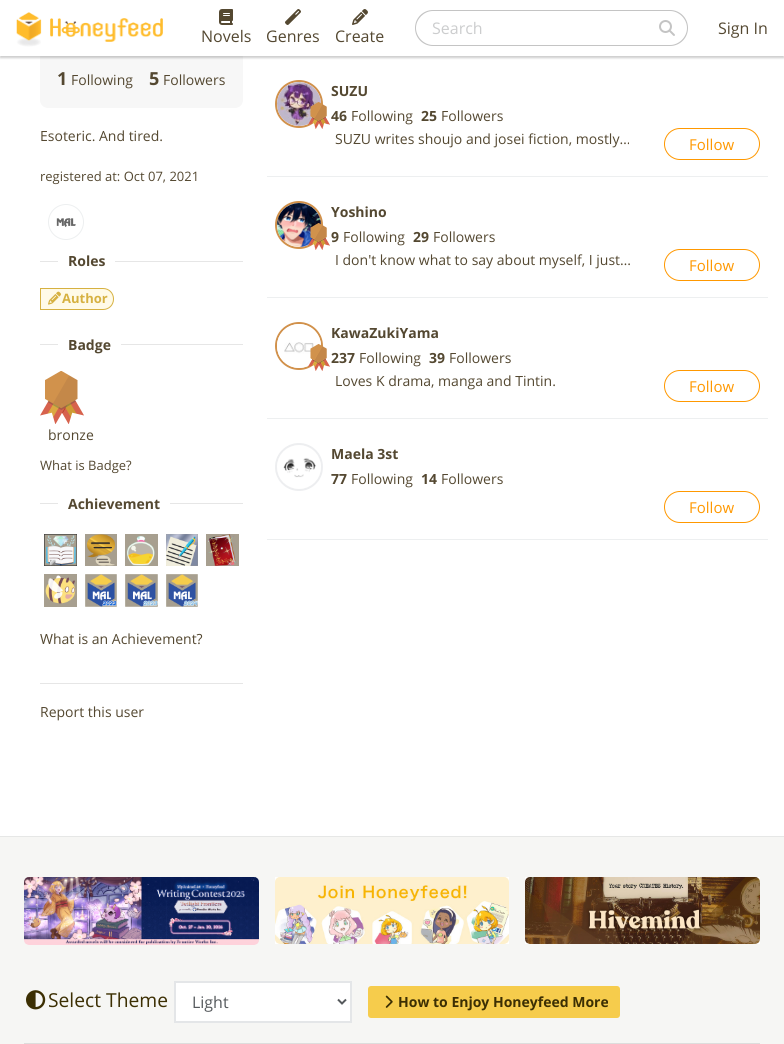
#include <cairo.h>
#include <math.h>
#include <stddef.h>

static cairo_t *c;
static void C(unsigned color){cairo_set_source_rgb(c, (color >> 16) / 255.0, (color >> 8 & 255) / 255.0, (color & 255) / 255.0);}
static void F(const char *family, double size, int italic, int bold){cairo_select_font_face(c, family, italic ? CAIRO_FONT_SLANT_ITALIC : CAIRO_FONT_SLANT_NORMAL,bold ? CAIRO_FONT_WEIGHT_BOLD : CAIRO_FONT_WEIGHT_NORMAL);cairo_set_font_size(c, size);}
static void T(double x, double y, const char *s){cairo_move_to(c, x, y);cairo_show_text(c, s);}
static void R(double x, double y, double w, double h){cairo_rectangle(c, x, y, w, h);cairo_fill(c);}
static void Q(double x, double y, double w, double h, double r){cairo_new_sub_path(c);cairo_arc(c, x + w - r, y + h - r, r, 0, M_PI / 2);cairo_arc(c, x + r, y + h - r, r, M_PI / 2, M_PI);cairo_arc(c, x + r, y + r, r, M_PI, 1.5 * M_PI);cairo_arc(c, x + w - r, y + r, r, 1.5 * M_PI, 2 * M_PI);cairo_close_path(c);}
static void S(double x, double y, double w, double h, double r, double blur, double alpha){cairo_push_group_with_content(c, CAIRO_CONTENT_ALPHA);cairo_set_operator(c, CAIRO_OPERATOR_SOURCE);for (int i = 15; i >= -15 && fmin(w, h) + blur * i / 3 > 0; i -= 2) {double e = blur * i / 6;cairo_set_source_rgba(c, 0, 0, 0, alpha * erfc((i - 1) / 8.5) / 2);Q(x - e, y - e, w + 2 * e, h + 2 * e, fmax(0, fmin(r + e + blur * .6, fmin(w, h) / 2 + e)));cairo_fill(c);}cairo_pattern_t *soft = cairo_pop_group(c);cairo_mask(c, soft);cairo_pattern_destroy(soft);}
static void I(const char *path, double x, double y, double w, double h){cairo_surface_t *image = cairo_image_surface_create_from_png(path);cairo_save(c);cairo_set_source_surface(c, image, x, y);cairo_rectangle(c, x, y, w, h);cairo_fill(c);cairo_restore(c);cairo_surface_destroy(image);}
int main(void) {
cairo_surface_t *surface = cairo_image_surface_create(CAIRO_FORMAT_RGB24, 784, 1044);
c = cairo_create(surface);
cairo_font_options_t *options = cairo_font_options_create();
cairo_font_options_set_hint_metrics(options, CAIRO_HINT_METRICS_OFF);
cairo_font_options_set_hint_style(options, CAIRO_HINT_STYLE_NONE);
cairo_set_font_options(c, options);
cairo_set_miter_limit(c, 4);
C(0xffffff);
cairo_paint(c);
C(0xf7f7f7);
Q(40,50,203,58,8);
cairo_fill(c);
C(0x000000);
S(0,2,784,56,0,1,.2);
C(0xffffff);
R(0,0,784,56);
I("1.png",16,12,26,35);
I("2.png",50,18,113,24);
I("3.png",219,9,14,16);
F("Open Sans",16,0,0);
C(0x544831);
T(201,42,"Novels");
I("4.png",285,9,16,16);
T(266,42,"Genres");
I("5.png",352,9,16,16);
T(335,42,"Create");
C(0xc4c4c4);
cairo_set_fill_rule(c,CAIRO_FILL_RULE_EVEN_ODD);
cairo_new_path(c);
cairo_move_to(c,433,10);
cairo_line_to(c,648,10);
cairo_line_to(c,648,46);
cairo_line_to(c,433,46);
cairo_curve_to(c,423,46,415,38,415,28);
cairo_curve_to(c,415,18,423,10,433,10);
cairo_close_path(c);
cairo_move_to(c,433,11);
cairo_line_to(c,648,11);
cairo_line_to(c,648,45);
cairo_line_to(c,433,45);
cairo_curve_to(c,424,45,416,37,416,28);
cairo_curve_to(c,416,19,424,11,433,11);
cairo_close_path(c);
cairo_fill(c);
C(0xcccdce);
T(432,34,"Search");
C(0xc4c4c4);
cairo_new_path(c);
cairo_move_to(c,647,10);
cairo_line_to(c,670,10);
cairo_curve_to(c,680,10,688,18,688,28);
cairo_curve_to(c,688,38,680,46,670,46);
cairo_line_to(c,647,46);
cairo_close_path(c);
cairo_move_to(c,647,11);
cairo_line_to(c,670,11);
cairo_curve_to(c,679,11,687,19,687,28);
cairo_curve_to(c,687,37,679,45,670,45);
cairo_line_to(c,647,45);
cairo_close_path(c);
cairo_fill(c);
I("6.png",659,20,16,16);
C(0x544831);
T(718,34,"Sign In");
F("Open Sans",18,0,1);
T(57,85,"1");
F("Open Sans",14,0,0);
T(71,85,"Following");
F("Open Sans",18,0,1);
T(149,85,"5");
F("Open Sans",14,0,0);
T(163,85,"Followers");
T(40,141,"Esoteric. And tired.");
F("Open Sans",13,0,0);
T(40,181,"registered at: Oct 07, 2021");
cairo_new_path(c);
cairo_arc(c,66,222,17.5,0,2 * M_PI);
C(0xedeff0);
cairo_set_line_width(c,1);
cairo_stroke(c);
I("7.png",56,218,20,9);
C(0xe6e6e6);
R(40,261,203,1);
C(0xffffff);
R(58,261,57,1);
F("Open Sans",14,0,1);
C(0x544831);
T(68,266,"Roles");
C(0xfffae7);
cairo_new_path(c);
cairo_move_to(c,40.5,288.5);
cairo_line_to(c,103,288.5);
cairo_curve_to(c,109,288.5,113.5,293,113.5,299);
cairo_curve_to(c,113.5,305,109,309.5,103,309.5);
cairo_line_to(c,40.5,309.5);
cairo_close_path(c);
cairo_fill_preserve(c);
C(0xd6b141);
cairo_stroke(c);
I("8.png",48,291,13,14);
F("Open Sans",13,0,1);
T(62,303,"Author");
C(0xe6e6e6);
R(40,344,203,1);
C(0xffffff);
R(58,344,63,1);
F("Open Sans",14,0,1);
C(0x544831);
T(68,350,"Badge");
I("9.png",40,371,44,53);
F("Open Sans",14,0,0);
T(48,440,"bronze");
F("Open Sans",13,0,0);
T(40,470,"What is Badge?");
C(0xe6e6e6);
R(40,503,203,1);
C(0xffffff);
R(58,503,112,1);
F("Open Sans",14,0,1);
C(0x544831);
T(68,509,"Achievement");
I("10.png",44,534,33,32);
I("11.png",85,534,32,32);
I("12.png",125,534,33,32);
I("13.png",166,534,32,32);
I("14.png",206,534,33,32);
I("15.png",44,574,33,33);
I("16.png",85,574,32,33);
I("17.png",125,574,33,33);
I("18.png",166,574,32,33);
F("Open Sans",14,0,0);
T(40,644,"What is an Achievement?");
C(0xe6e6e6);
R(40,683,203,1);
C(0x544831);
T(40,717,"Report this user");
C(0xedeff0);
R(267,176,501,1);
cairo_new_path(c);
cairo_arc(c,299,104,23,0,2 * M_PI);
C(0xd1914b);
cairo_set_line_width(c,2);
cairo_stroke(c);
I("19.png",277,82,44,44);
I("20.png",308,102,22,27);
F("Open Sans",14,0,1);
C(0x544831);
T(331,96,"SUZU");
T(331,121,"46");
F("Open Sans",14,0,0);
T(351,121,"Following");
F("Open Sans",14,0,1);
T(421,121,"25");
F("Open Sans",14,0,0);
T(441,121,"Followers");
T(335,144,"SUZU writes shoujo and josei fiction, mostly…");
Q(664.5,128.5,95,31,15.5);
C(0xff9800);
cairo_set_line_width(c,1);
cairo_stroke(c);
F("Open Sans",15,0,0);
T(689,150,"Follow");
C(0xedeff0);
R(267,297,501,1);
cairo_new_path(c);
cairo_arc(c,299,225,23,0,2 * M_PI);
C(0xd1914b);
cairo_set_line_width(c,2);
cairo_stroke(c);
I("21.png",277,203,44,44);
I("22.png",308,223,22,27);
F("Open Sans",14,0,1);
C(0x544831);
T(331,217,"Yoshino");
T(331,242,"9");
F("Open Sans",14,0,0);
T(343,242,"Following");
F("Open Sans",14,0,1);
T(413,242,"29");
F("Open Sans",14,0,0);
T(433,242,"Followers");
T(335,265,"I don't know what to say about myself, I just…");
Q(664.5,249.5,95,31,15.5);
C(0xff9800);
cairo_set_line_width(c,1);
cairo_stroke(c);
F("Open Sans",15,0,0);
T(689,271,"Follow");
C(0xedeff0);
R(267,418,501,1);
cairo_new_path(c);
cairo_arc(c,299,346,23,0,2 * M_PI);
C(0xd1914b);
cairo_set_line_width(c,2);
cairo_stroke(c);
I("23.png",277,324,44,44);
I("24.png",308,344,22,27);
F("Open Sans",14,0,1);
C(0x544831);
T(331,338,"KawaZukiYama");
T(331,363,"237");
F("Open Sans",14,0,0);
T(359,363,"Following");
F("Open Sans",14,0,1);
T(429,363,"39");
F("Open Sans",14,0,0);
T(449,363,"Followers");
T(335,386,"Loves K drama, manga and Tintin.");
Q(664.5,370.5,95,31,15.5);
C(0xff9800);
cairo_set_line_width(c,1);
cairo_stroke(c);
F("Open Sans",15,0,0);
T(689,392,"Follow");
C(0xedeff0);
R(267,539,501,1);
C(0xf5f5f5);
cairo_new_path(c);
cairo_arc(c,299,467,22,0,2 * M_PI);
cairo_fill(c);
cairo_arc(c,299,467,23,0,2 * M_PI);
cairo_set_source_rgba(c,0.471,0.51,0.549,0.13);
cairo_set_line_width(c,2);
cairo_stroke(c);
I("25.png",277,445,44,44);
F("Open Sans",14,0,1);
C(0x544831);
T(331,459,"Maela 3st");
T(331,484,"77");
F("Open Sans",14,0,0);
T(351,484,"Following");
F("Open Sans",14,0,1);
T(421,484,"14");
F("Open Sans",14,0,0);
T(441,484,"Followers");
Q(664.5,491.5,95,31,15.5);
C(0xff9800);
cairo_set_line_width(c,1);
cairo_stroke(c);
F("Open Sans",15,0,0);
T(689,513,"Follow");
C(0xf6f6f4);
R(0,837,784,207);
C(0xe6e7e6);
R(0,836,784,1);
I("26.png",24,877,235,68);
C(0xffffff);
R(275,877,234,67);
I("27.png",275,877,234,67);
R(525,877,235,67);
I("28.png",525,877,235,67);
I("29.png",26,990,20,20);
F("Open Sans",19.25,0,0);
C(0x3c2f03);
T(48,1007,"Select Theme");
C(0xffffff);
cairo_rectangle(c,175,982,176,40);
cairo_fill_preserve(c);
C(0xe4e6e8);
cairo_set_line_width(c,2);
cairo_stroke(c);
cairo_new_path(c);
cairo_move_to(c,338,999.5);
cairo_line_to(c,342,1003.5);
cairo_line_to(c,346,999.5);
C(0x55595c);
cairo_stroke(c);
F("Open Sans",16,0,0);
T(192,1008,"Light");
C(0xf6cc4c);
Q(368,986,252,32,3);
cairo_fill(c);
I("30.png",385,995,8,13);
F("Open Sans",14,0,1);
C(0x3c2f03);
T(398,1007,"How to Enjoy Honeyfeed More");
C(0xdddddc);
R(24,1043,736,1);
cairo_surface_write_to_png(surface, "o.png");
cairo_font_options_destroy(options);
cairo_destroy(c);
cairo_surface_destroy(surface);
return 0;
}
